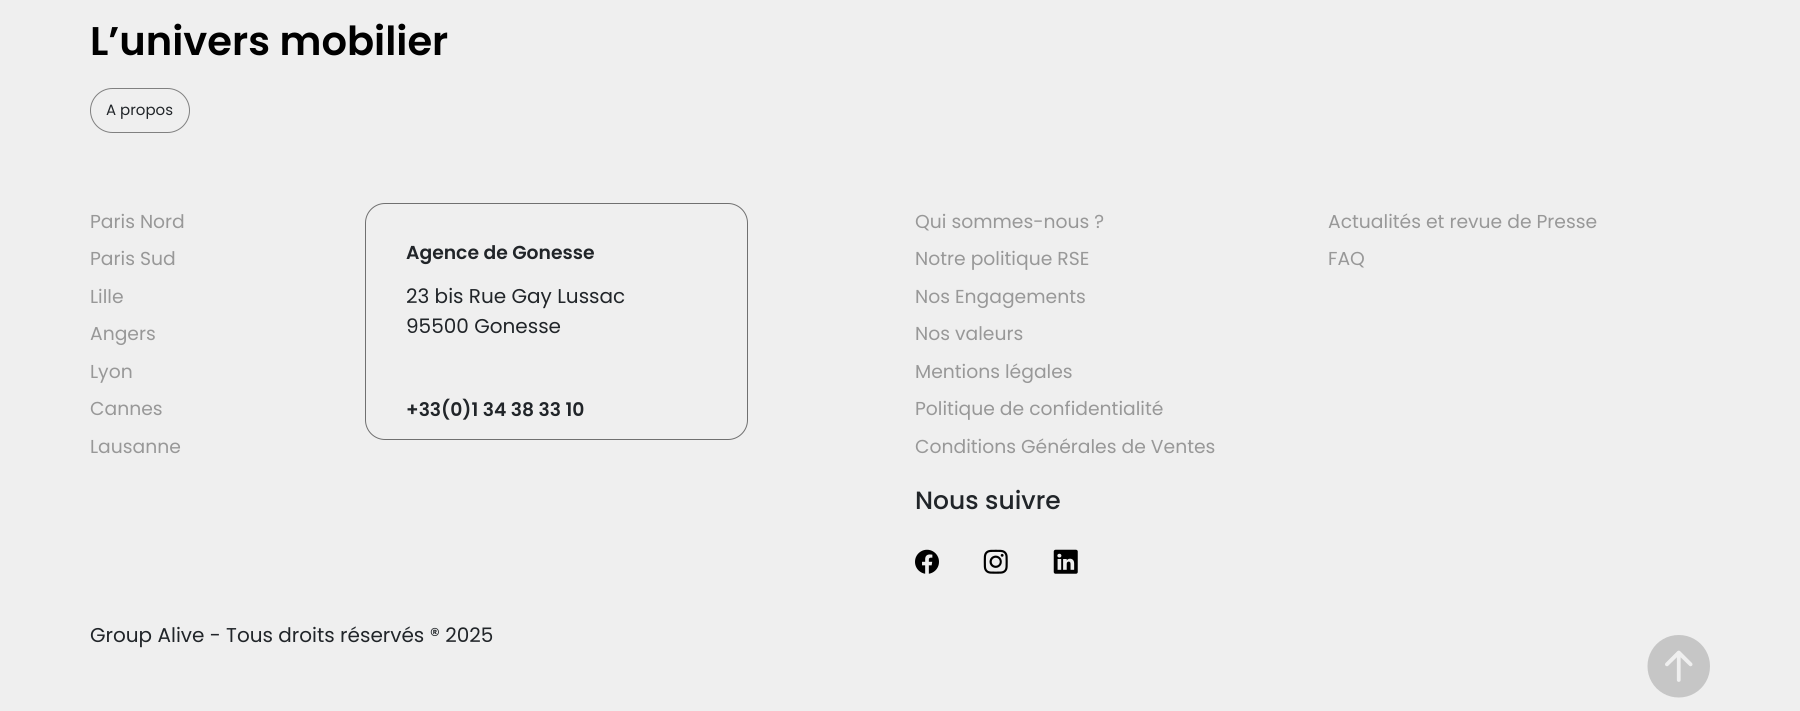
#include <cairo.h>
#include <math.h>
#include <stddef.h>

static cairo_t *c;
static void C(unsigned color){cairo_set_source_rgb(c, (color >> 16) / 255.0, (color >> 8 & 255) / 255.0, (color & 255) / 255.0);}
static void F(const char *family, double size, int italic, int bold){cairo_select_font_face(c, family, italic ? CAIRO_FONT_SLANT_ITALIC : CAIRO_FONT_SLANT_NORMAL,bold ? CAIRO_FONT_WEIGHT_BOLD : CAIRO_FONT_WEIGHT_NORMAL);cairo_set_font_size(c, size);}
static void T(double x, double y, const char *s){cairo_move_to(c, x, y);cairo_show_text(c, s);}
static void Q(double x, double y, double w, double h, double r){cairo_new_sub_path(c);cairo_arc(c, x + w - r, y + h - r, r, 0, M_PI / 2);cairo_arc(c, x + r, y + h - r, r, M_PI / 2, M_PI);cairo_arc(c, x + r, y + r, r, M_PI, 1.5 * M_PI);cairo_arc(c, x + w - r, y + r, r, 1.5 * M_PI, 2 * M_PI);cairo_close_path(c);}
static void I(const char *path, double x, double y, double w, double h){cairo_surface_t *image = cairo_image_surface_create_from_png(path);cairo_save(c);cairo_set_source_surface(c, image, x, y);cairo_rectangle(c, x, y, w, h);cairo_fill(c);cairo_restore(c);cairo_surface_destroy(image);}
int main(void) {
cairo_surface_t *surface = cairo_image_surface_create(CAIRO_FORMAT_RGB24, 1800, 711);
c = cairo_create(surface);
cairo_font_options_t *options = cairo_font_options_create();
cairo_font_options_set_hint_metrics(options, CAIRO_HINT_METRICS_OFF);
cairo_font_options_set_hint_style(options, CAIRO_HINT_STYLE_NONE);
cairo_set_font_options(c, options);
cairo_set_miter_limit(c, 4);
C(0xefefef);
cairo_paint(c);
F("Poppins SemiBold",40,0,0);
C(0x000000);
T(90,55,"L’univers mobilier");
Q(90.5,88.5,99,44,22);
C(0x808080);
cairo_set_line_width(c,1);
cairo_stroke(c);
F("Poppins",15,0,0);
C(0x212529);
T(106,115,"A propos");
F("Poppins",18.75,0,0);
C(0x989898);
T(90,228,"Paris Nord");
T(90,265,"Paris Sud");
T(90,303,"Lille");
T(90,340,"Angers");
T(90,378,"Lyon");
T(90,415,"Cannes");
T(90,453,"Lausanne");
Q(365.5,203.5,382,236,19.5);
C(0x707070);
cairo_stroke(c);
F("Poppins SemiBold",18.75,0,0);
C(0x212529);
T(406,259,"Agence de Gonesse");
F("Poppins",20,0,0);
T(406,303,"23 bis Rue Gay Lussac");
T(406,333,"95500 Gonesse");
F("Poppins SemiBold",18.75,0,0);
T(406,416,"+33(0)1 34 38 33 10");
F("Poppins",18.75,0,0);
C(0x989898);
T(915,228,"Qui sommes-nous ?");
T(915,265,"Notre politique RSE");
T(915,303,"Nos Engagements");
T(915,340,"Nos valeurs");
T(915,378,"Mentions légales");
T(915,415,"Politique de confidentialité");
T(915,453,"Conditions Générales de Ventes");
F("Poppins Medium",25,0,0);
C(0x212529);
T(915,509,"Nous suivre");
I("1.png",915,549,24,25);
I("2.png",983,549,25,25);
I("3.png",1053,549,25,25);
F("Poppins",18.75,0,0);
C(0x989898);
T(1328,228,"Actualités et revue de Presse");
T(1328,265,"FAQ");
F("Poppins",20,0,0);
C(0x212529);
T(90,642,"Group Alive - Tous droits réservés ® 2025");
I("4.png",1647,635,63,63);
cairo_surface_write_to_png(surface, "o.png");
cairo_font_options_destroy(options);
cairo_destroy(c);
cairo_surface_destroy(surface);
return 0;
}
